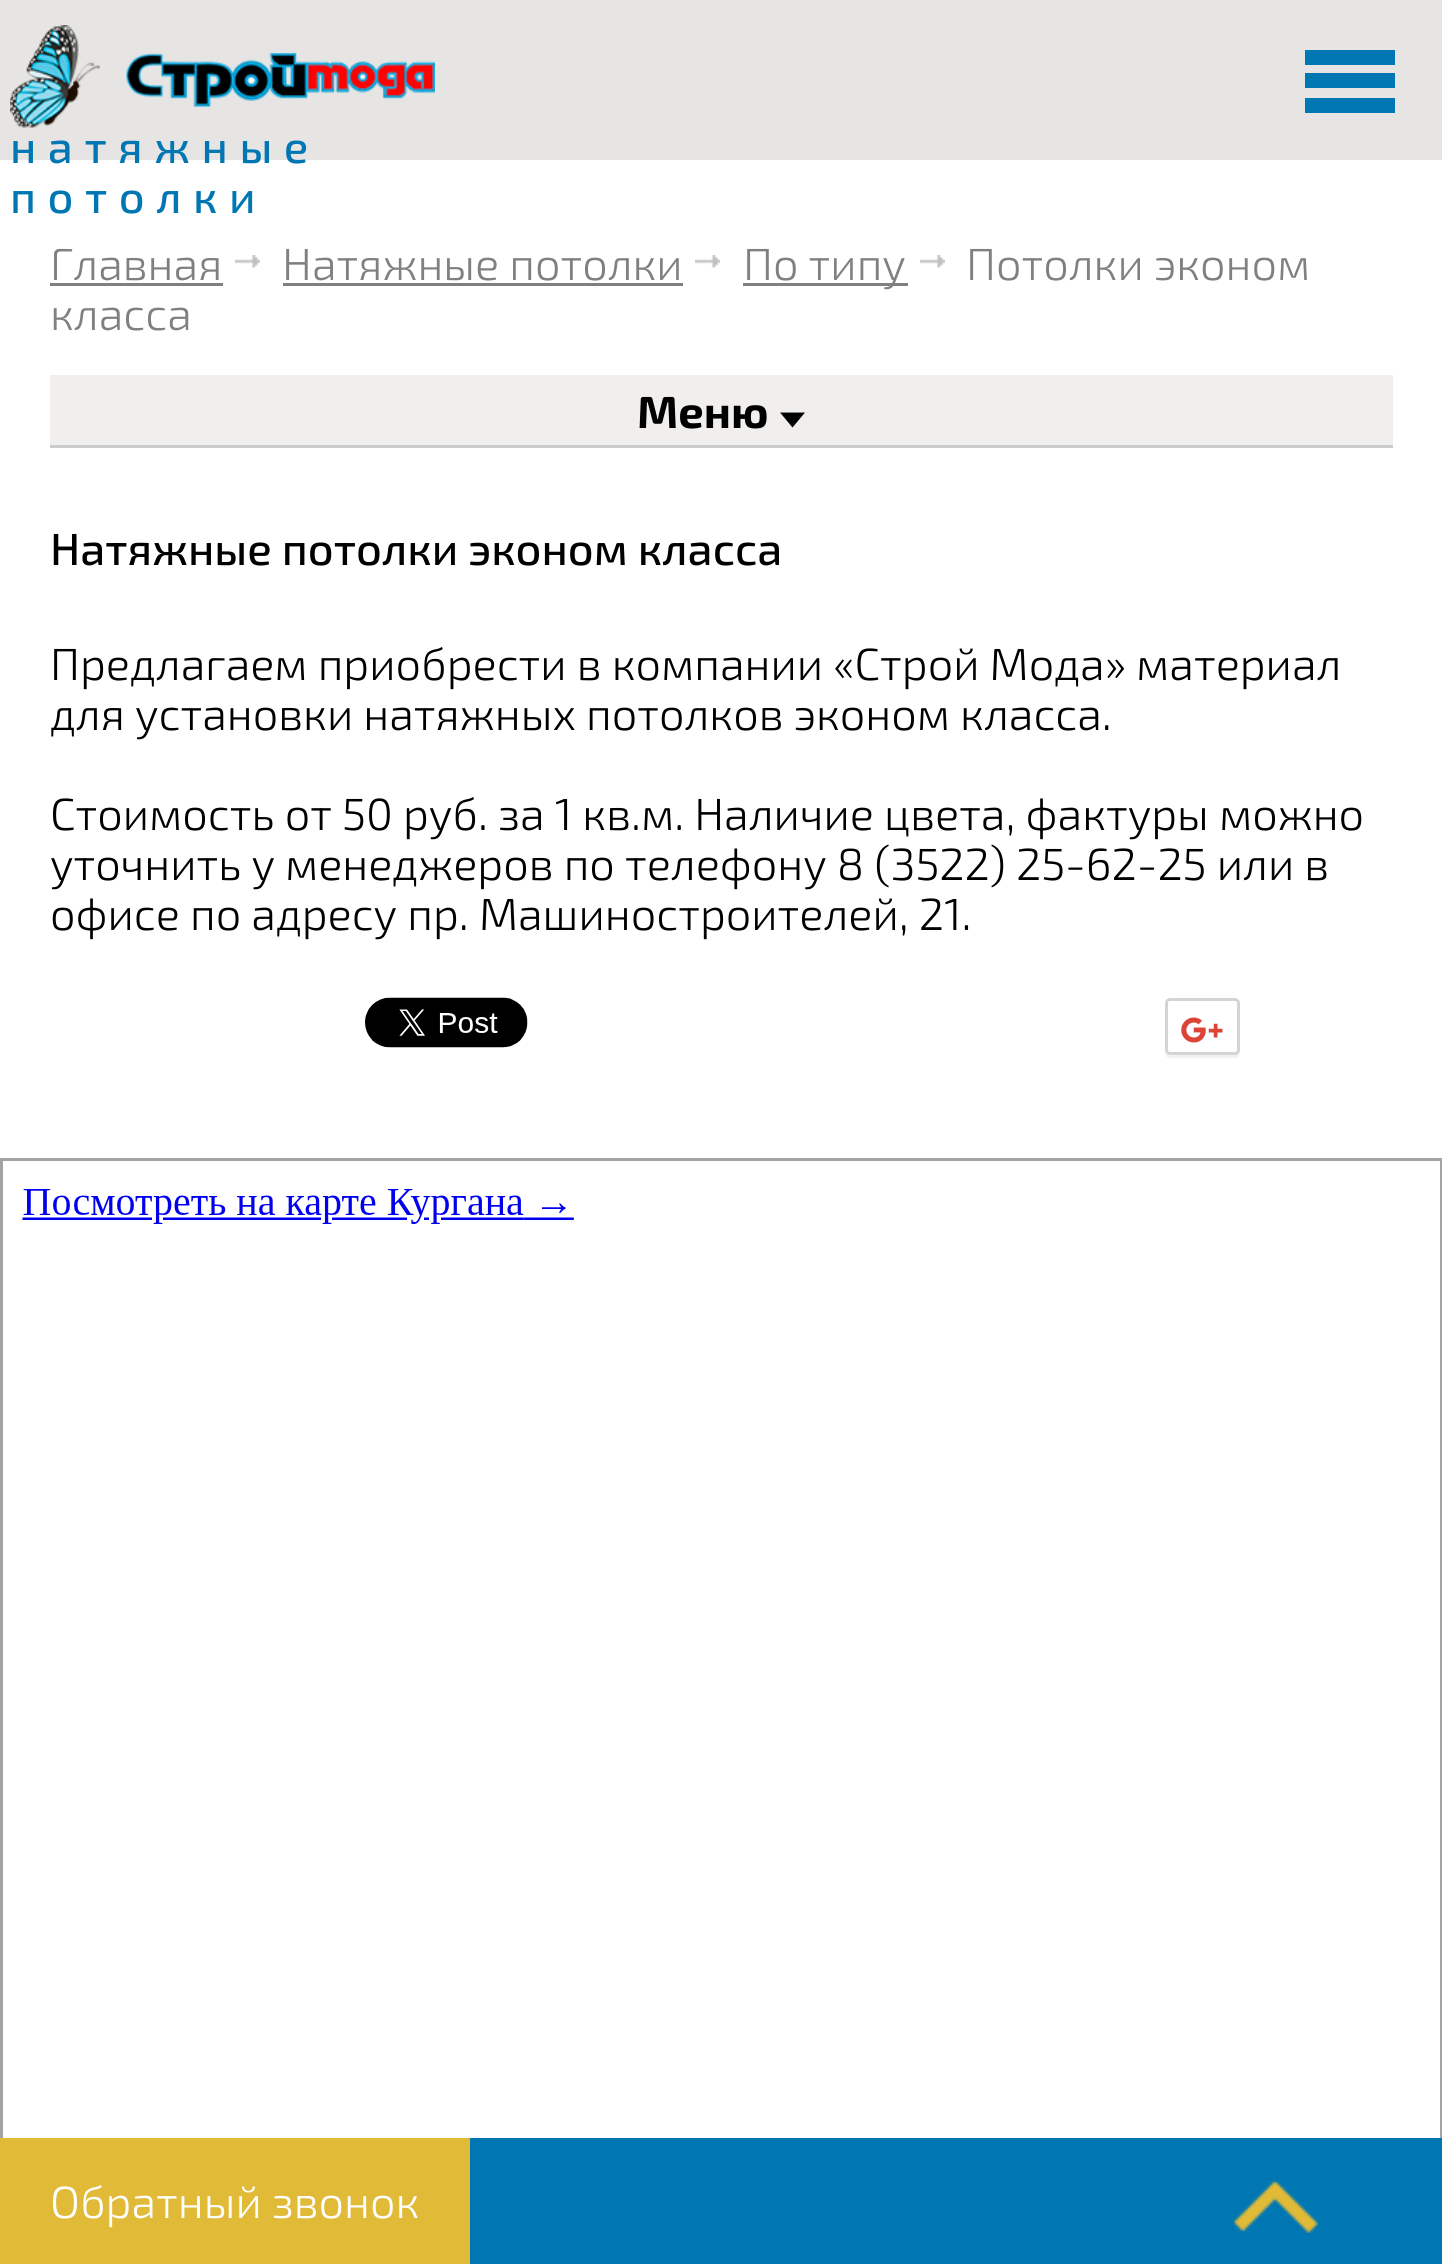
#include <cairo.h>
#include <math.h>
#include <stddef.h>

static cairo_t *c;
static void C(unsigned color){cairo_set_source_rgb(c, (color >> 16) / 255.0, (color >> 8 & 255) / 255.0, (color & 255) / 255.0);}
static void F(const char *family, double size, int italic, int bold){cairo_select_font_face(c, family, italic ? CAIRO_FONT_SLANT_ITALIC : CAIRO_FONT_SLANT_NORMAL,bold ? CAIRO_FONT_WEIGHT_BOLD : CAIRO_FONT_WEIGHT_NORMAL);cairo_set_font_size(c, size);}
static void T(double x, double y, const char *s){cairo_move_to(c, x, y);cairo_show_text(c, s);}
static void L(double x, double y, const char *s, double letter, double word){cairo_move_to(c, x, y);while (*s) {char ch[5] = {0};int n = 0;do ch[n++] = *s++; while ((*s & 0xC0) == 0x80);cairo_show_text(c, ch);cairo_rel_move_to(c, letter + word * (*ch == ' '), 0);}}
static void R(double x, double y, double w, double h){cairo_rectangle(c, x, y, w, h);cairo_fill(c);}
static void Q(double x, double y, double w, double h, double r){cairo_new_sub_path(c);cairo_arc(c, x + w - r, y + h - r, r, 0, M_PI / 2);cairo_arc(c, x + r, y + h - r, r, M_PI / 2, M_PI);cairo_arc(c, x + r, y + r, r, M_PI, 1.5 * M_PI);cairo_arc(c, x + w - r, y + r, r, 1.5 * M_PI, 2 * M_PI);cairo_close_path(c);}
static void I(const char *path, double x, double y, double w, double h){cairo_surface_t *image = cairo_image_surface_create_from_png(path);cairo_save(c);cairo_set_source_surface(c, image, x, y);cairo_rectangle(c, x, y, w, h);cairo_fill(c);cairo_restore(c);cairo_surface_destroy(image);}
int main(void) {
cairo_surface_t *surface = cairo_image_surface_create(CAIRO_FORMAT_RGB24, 1442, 2264);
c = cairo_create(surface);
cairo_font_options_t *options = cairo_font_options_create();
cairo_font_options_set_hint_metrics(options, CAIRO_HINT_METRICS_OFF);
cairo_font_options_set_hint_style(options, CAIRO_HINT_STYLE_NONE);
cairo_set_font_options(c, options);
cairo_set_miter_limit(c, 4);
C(0xffffff);
cairo_paint(c);
C(0xe6e5e4);
R(0,0,1442,160);
C(0x0077b3);
R(1305,50,90,15);
R(1305,73,90,15);
R(1305,98,90,15);
I("1.png",10,25,425,103);
F("Exo 2 Medium",45,0,0);
L(10,163,"натяжные",11.5,0);
L(10,213,"потолки",11.5,0);
F("Exo 2 Light",45,0,0);
C(0x808080);
T(50,280,"Главная");
R(50,283,173,3);
I("2.png",235,255,25,13);
T(282,280,"Натяжные потолки");
R(283,283,400,3);
I("3.png",695,255,25,13);
R(743,283,165,3);
T(743,280,"По типу");
I("4.png",920,255,25,13);
T(966,280,"Потолки эконом");
T(50,330,"класса");
C(0xf0efed);
R(50,375,1343,70);
C(0xcccccc);
R(50,445,1343,3);
F("Exo 2",45,0,1);
C(0x000000);
T(637,428,"Меню");
cairo_new_path(c);
cairo_move_to(c,780,412.5);
cairo_line_to(c,805,412.5);
cairo_line_to(c,792.5,427.5);
cairo_close_path(c);
cairo_fill(c);
F("Exo 2 Medium",45,0,0);
T(50,565,"Натяжные потолки эконом класса");
F("Exo 2 Light",45,0,0);
T(50,680,"Предлагаем приобрести в компании «Строй Мода» материал");
T(50,730,"для установки натяжных потолков эконом класса.");
T(50,830,"Стоимость от 50 руб. за 1 кв.м. Наличие цвета, фактуры можно");
T(50,880,"уточнить у менеджеров по телефону 8 (3522) 25-62-25 или в");
T(50,930,"офисе по адресу пр. Машиностроителей, 21.");
I("5.png",365,997,163,51);
cairo_save(c);
cairo_rectangle(c,50,523,1343,535);
cairo_clip(c);
C(0xf2f2f2);
cairo_new_path(c);
cairo_move_to(c,1165,1050);
cairo_curve_to(c,1165,1061,1171,1058,1181,1058);
cairo_line_to(c,1224,1058);
cairo_curve_to(c,1234,1058,1240,1061,1240,1050);
cairo_curve_to(c,1240,1053,1238,1055,1235,1055);
cairo_line_to(c,1170,1055);
cairo_curve_to(c,1167,1055,1165,1053,1165,1050);
cairo_close_path(c);
cairo_fill(c);
cairo_restore(c);
Q(1166.5,999.5,72,54,3.5);
C(0xd4d4d4);
cairo_set_line_width(c,3);
cairo_stroke(c);
I("6.png",1181,1017,42,26);
cairo_rectangle(c,1.5,1159.5,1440,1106);
C(0xa3a3a3);
cairo_stroke(c);
I("7.png",22,1189,552,35);
C(0x0077b3);
R(470,2138,972,126);
C(0xe1ba37);
R(0,2138,470,126);
C(0xffffff);
T(50,2218,"Обратный звонок");
I("8.png",1232,2180,86,53);
cairo_surface_write_to_png(surface, "o.png");
cairo_font_options_destroy(options);
cairo_destroy(c);
cairo_surface_destroy(surface);
return 0;
}
